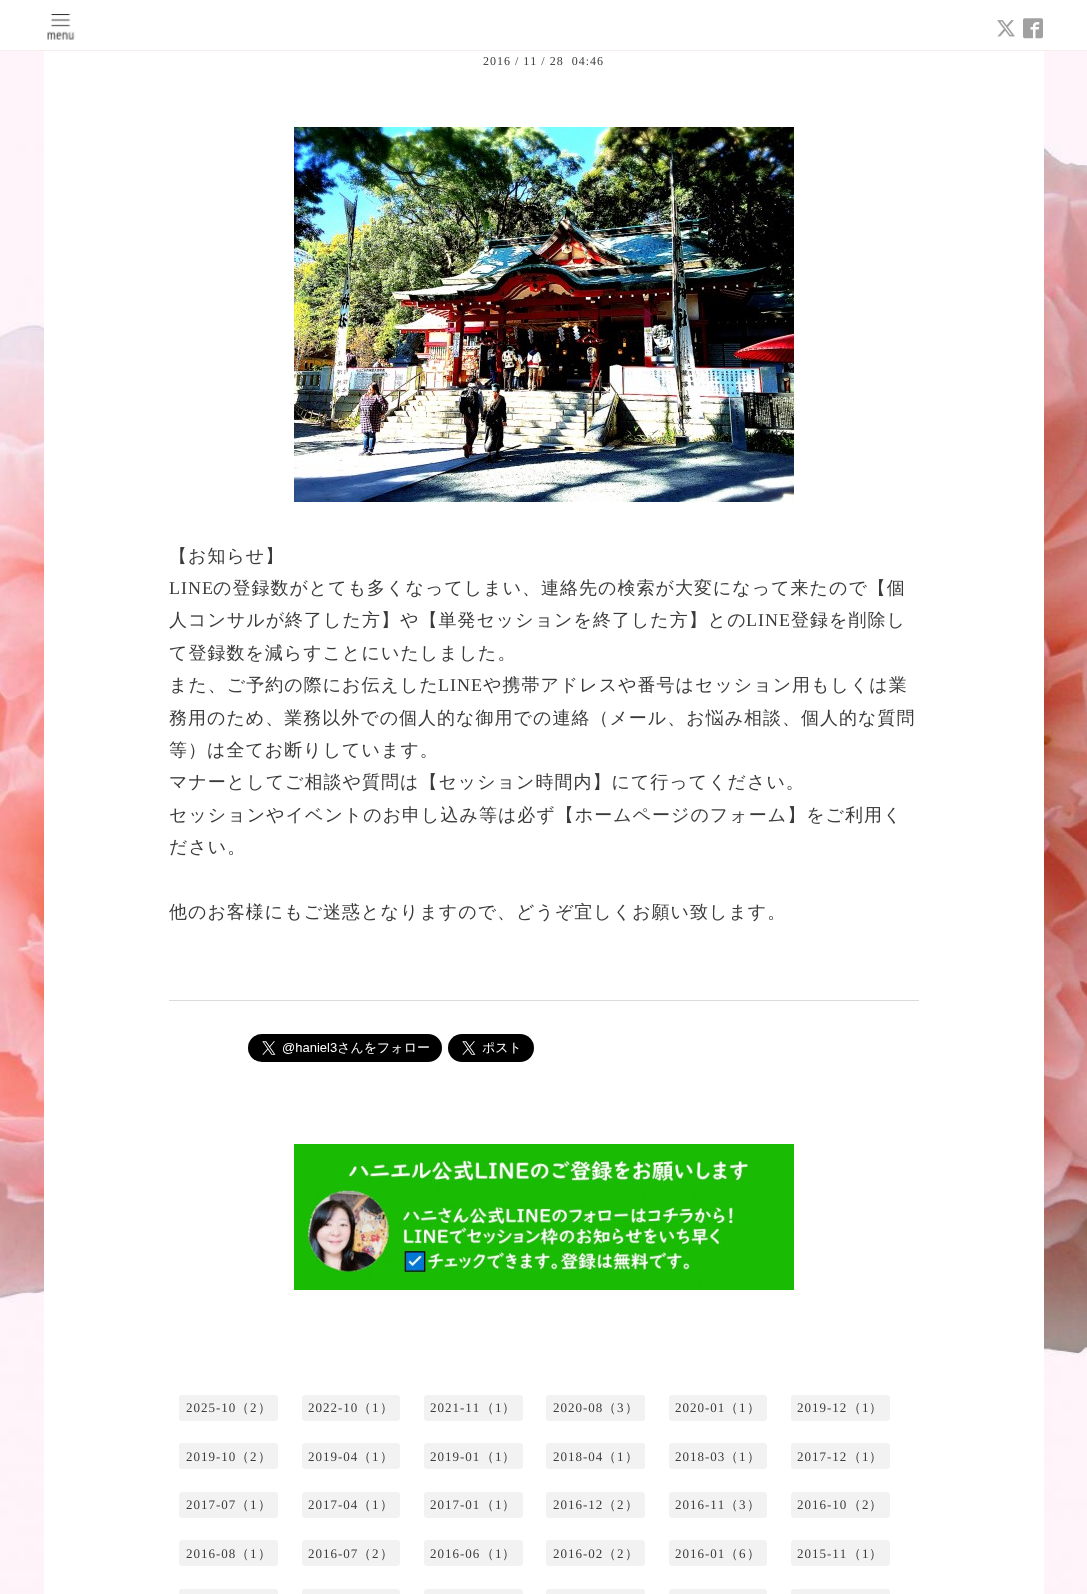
#include <cairo.h>
#include <math.h>
#include <stddef.h>

static cairo_t *c;
static void C(unsigned color){cairo_set_source_rgb(c, (color >> 16) / 255.0, (color >> 8 & 255) / 255.0, (color & 255) / 255.0);}
static void F(const char *family, double size, int italic, int bold){cairo_select_font_face(c, family, italic ? CAIRO_FONT_SLANT_ITALIC : CAIRO_FONT_SLANT_NORMAL,bold ? CAIRO_FONT_WEIGHT_BOLD : CAIRO_FONT_WEIGHT_NORMAL);cairo_set_font_size(c, size);}
static void L(double x, double y, const char *s, double letter, double word){cairo_move_to(c, x, y);while (*s) {char ch[5] = {0};int n = 0;do ch[n++] = *s++; while ((*s & 0xC0) == 0x80);cairo_show_text(c, ch);cairo_rel_move_to(c, letter + word * (*ch == ' '), 0);}}
static void R(double x, double y, double w, double h){cairo_rectangle(c, x, y, w, h);cairo_fill(c);}
static void Q(double x, double y, double w, double h, double r){cairo_new_sub_path(c);cairo_arc(c, x + w - r, y + h - r, r, 0, M_PI / 2);cairo_arc(c, x + r, y + h - r, r, M_PI / 2, M_PI);cairo_arc(c, x + r, y + r, r, M_PI, 1.5 * M_PI);cairo_arc(c, x + w - r, y + r, r, 1.5 * M_PI, 2 * M_PI);cairo_close_path(c);}
static void I(const char *path, double x, double y, double w, double h){cairo_surface_t *image = cairo_image_surface_create_from_png(path);cairo_save(c);cairo_set_source_surface(c, image, x, y);cairo_rectangle(c, x, y, w, h);cairo_fill(c);cairo_restore(c);cairo_surface_destroy(image);}
int main(void) {
cairo_surface_t *surface = cairo_image_surface_create(CAIRO_FORMAT_RGB24, 1087, 1594);
c = cairo_create(surface);
cairo_font_options_t *options = cairo_font_options_create();
cairo_font_options_set_hint_metrics(options, CAIRO_HINT_METRICS_OFF);
cairo_font_options_set_hint_style(options, CAIRO_HINT_STYLE_NONE);
cairo_set_font_options(c, options);
cairo_set_miter_limit(c, 4);
C(0xffffff);
cairo_paint(c);
I("1.png",0,51,1087,1543);
C(0xf9eeee);
R(0,50,1087,1);
I("2.png",47,14,28,26);
I("3.png",997,20,18,17);
I("4.png",1023,18,20,21);
C(0xffffff);
R(44,51,1000,1543);
F("Liberation Serif",12,0,0);
C(0x3a3a3a);
L(483,65,"2016 / 11 / 28  04:46",1,0);
I("5.png",294,127,500,375);
C(0xdadbdb);
R(169,1000,750,1);
F("WenQuanYi Zen Hei Medium",18,0,0);
C(0x3a3a3a);
L(169,562,"【お知らせ】",1,0);
F("Liberation Serif",18,0,0);
L(169,594,"LINE",1,0);
F("WenQuanYi Zen Hei Medium",18,0,0);
L(213,594,"の登録数がとても多くなってしまい、連絡先の検索が大変になって来たので【個",1,0);
L(169,626,"人コンサルが終了した方】や【単発セッションを終了した方】との",1,0);
F("Liberation Serif",18,0,0);
L(746,626,"LINE",1,0);
F("WenQuanYi Zen Hei Medium",18,0,0);
L(791,626,"登録を削除し",1,0);
L(169,659,"て登録数を減らすことにいたしました。",1,0);
L(169,691,"また、ご予約の際にお伝えした",1,0);
F("Liberation Serif",18,0,0);
L(438,691,"LINE",1,0);
F("WenQuanYi Zen Hei Medium",18,0,0);
L(483,691,"や携帯アドレスや番号はセッション用もしくは業",1,0);
L(169,724,"務用のため、業務以外での個人的な御用での連絡（メール、お悩み相談、個人的な質問",1,0);
L(169,756,"等）は全てお断りしています。",1,0);
L(169,788,"マナーとしてご相談や質問は【セッション時間内】にて行ってください。",1,0);
L(169,821,"セッションやイベントのお申し込み等は必ず【ホームページのフォーム】をご利用く",1,0);
L(169,853,"ださい。",1,0);
L(169,918,"他のお客様にもご迷惑となりますので、どうぞ宜しくお願い致します。",1,0);
I("6.png",248,1034,194,28);
I("7.png",448,1034,86,28);
I("8.png",294,1144,500,146);
C(0xf2f2f2);
Q(179,1395,99,26,3);
cairo_fill(c);
F("Liberation Serif",13,0,0);
C(0x3a3a3a);
L(186,1412,"2025-10",1,0);
F("WenQuanYi Zen Hei Medium",13,0,0);
L(236,1412,"（",1,0);
F("Liberation Serif",13,0,0);
L(250,1412,"2",1,0);
F("WenQuanYi Zen Hei Medium",13,0,0);
L(258,1412,"）",1,0);
C(0xf2f2f2);
Q(302,1395,98,26,3);
cairo_fill(c);
F("Liberation Serif",13,0,0);
C(0x3a3a3a);
L(308,1412,"2022-10",1,0);
F("WenQuanYi Zen Hei Medium",13,0,0);
L(358,1412,"（",1,0);
F("Liberation Serif",13,0,0);
L(372,1412,"1",1,0);
F("WenQuanYi Zen Hei Medium",13,0,0);
L(380,1412,"）",1,0);
C(0xf2f2f2);
Q(424,1395,99,26,3);
cairo_fill(c);
F("Liberation Serif",13,0,0);
C(0x3a3a3a);
L(430,1412,"2021-11",1,0);
F("WenQuanYi Zen Hei Medium",13,0,0);
L(481,1412,"（",1,0);
F("Liberation Serif",13,0,0);
L(495,1412,"1",1,0);
F("WenQuanYi Zen Hei Medium",13,0,0);
L(502,1412,"）",1,0);
C(0xf2f2f2);
Q(546,1395,99,26,3);
cairo_fill(c);
F("Liberation Serif",13,0,0);
C(0x3a3a3a);
L(553,1412,"2020-08",1,0);
F("WenQuanYi Zen Hei Medium",13,0,0);
L(603,1412,"（",1,0);
F("Liberation Serif",13,0,0);
L(617,1412,"3",1,0);
F("WenQuanYi Zen Hei Medium",13,0,0);
L(625,1412,"）",1,0);
C(0xf2f2f2);
Q(669,1395,98,26,3);
cairo_fill(c);
F("Liberation Serif",13,0,0);
C(0x3a3a3a);
L(675,1412,"2020-01",1,0);
F("WenQuanYi Zen Hei Medium",13,0,0);
L(725,1412,"（",1,0);
F("Liberation Serif",13,0,0);
L(739,1412,"1",1,0);
F("WenQuanYi Zen Hei Medium",13,0,0);
L(747,1412,"）",1,0);
C(0xf2f2f2);
Q(791,1395,99,26,3);
cairo_fill(c);
F("Liberation Serif",13,0,0);
C(0x3a3a3a);
L(797,1412,"2019-12",1,0);
F("WenQuanYi Zen Hei Medium",13,0,0);
L(848,1412,"（",1,0);
F("Liberation Serif",13,0,0);
L(862,1412,"1",1,0);
F("WenQuanYi Zen Hei Medium",13,0,0);
L(869,1412,"）",1,0);
C(0xf2f2f2);
Q(179,1443,99,26,3);
cairo_fill(c);
F("Liberation Serif",13,0,0);
C(0x3a3a3a);
L(186,1461,"2019-10",1,0);
F("WenQuanYi Zen Hei Medium",13,0,0);
L(236,1461,"（",1,0);
F("Liberation Serif",13,0,0);
L(250,1461,"2",1,0);
F("WenQuanYi Zen Hei Medium",13,0,0);
L(258,1461,"）",1,0);
C(0xf2f2f2);
Q(302,1443,98,26,3);
cairo_fill(c);
F("Liberation Serif",13,0,0);
C(0x3a3a3a);
L(308,1461,"2019-04",1,0);
F("WenQuanYi Zen Hei Medium",13,0,0);
L(358,1461,"（",1,0);
F("Liberation Serif",13,0,0);
L(372,1461,"1",1,0);
F("WenQuanYi Zen Hei Medium",13,0,0);
L(380,1461,"）",1,0);
C(0xf2f2f2);
Q(424,1443,99,26,3);
cairo_fill(c);
F("Liberation Serif",13,0,0);
C(0x3a3a3a);
L(430,1461,"2019-01",1,0);
F("WenQuanYi Zen Hei Medium",13,0,0);
L(481,1461,"（",1,0);
F("Liberation Serif",13,0,0);
L(495,1461,"1",1,0);
F("WenQuanYi Zen Hei Medium",13,0,0);
L(502,1461,"）",1,0);
C(0xf2f2f2);
Q(546,1443,99,26,3);
cairo_fill(c);
F("Liberation Serif",13,0,0);
C(0x3a3a3a);
L(553,1461,"2018-04",1,0);
F("WenQuanYi Zen Hei Medium",13,0,0);
L(603,1461,"（",1,0);
F("Liberation Serif",13,0,0);
L(617,1461,"1",1,0);
F("WenQuanYi Zen Hei Medium",13,0,0);
L(625,1461,"）",1,0);
C(0xf2f2f2);
Q(669,1443,98,26,3);
cairo_fill(c);
F("Liberation Serif",13,0,0);
C(0x3a3a3a);
L(675,1461,"2018-03",1,0);
F("WenQuanYi Zen Hei Medium",13,0,0);
L(725,1461,"（",1,0);
F("Liberation Serif",13,0,0);
L(739,1461,"1",1,0);
F("WenQuanYi Zen Hei Medium",13,0,0);
L(747,1461,"）",1,0);
C(0xf2f2f2);
Q(791,1443,99,26,3);
cairo_fill(c);
F("Liberation Serif",13,0,0);
C(0x3a3a3a);
L(797,1461,"2017-12",1,0);
F("WenQuanYi Zen Hei Medium",13,0,0);
L(848,1461,"（",1,0);
F("Liberation Serif",13,0,0);
L(862,1461,"1",1,0);
F("WenQuanYi Zen Hei Medium",13,0,0);
L(869,1461,"）",1,0);
C(0xf2f2f2);
Q(179,1492,99,26,3);
cairo_fill(c);
F("Liberation Serif",13,0,0);
C(0x3a3a3a);
L(186,1509,"2017-07",1,0);
F("WenQuanYi Zen Hei Medium",13,0,0);
L(236,1509,"（",1,0);
F("Liberation Serif",13,0,0);
L(250,1509,"1",1,0);
F("WenQuanYi Zen Hei Medium",13,0,0);
L(258,1509,"）",1,0);
C(0xf2f2f2);
Q(302,1492,98,26,3);
cairo_fill(c);
F("Liberation Serif",13,0,0);
C(0x3a3a3a);
L(308,1509,"2017-04",1,0);
F("WenQuanYi Zen Hei Medium",13,0,0);
L(358,1509,"（",1,0);
F("Liberation Serif",13,0,0);
L(372,1509,"1",1,0);
F("WenQuanYi Zen Hei Medium",13,0,0);
L(380,1509,"）",1,0);
C(0xf2f2f2);
Q(424,1492,99,26,3);
cairo_fill(c);
F("Liberation Serif",13,0,0);
C(0x3a3a3a);
L(430,1509,"2017-01",1,0);
F("WenQuanYi Zen Hei Medium",13,0,0);
L(481,1509,"（",1,0);
F("Liberation Serif",13,0,0);
L(495,1509,"1",1,0);
F("WenQuanYi Zen Hei Medium",13,0,0);
L(502,1509,"）",1,0);
C(0xf2f2f2);
Q(546,1492,99,26,3);
cairo_fill(c);
F("Liberation Serif",13,0,0);
C(0x3a3a3a);
L(553,1509,"2016-12",1,0);
F("WenQuanYi Zen Hei Medium",13,0,0);
L(603,1509,"（",1,0);
F("Liberation Serif",13,0,0);
L(617,1509,"2",1,0);
F("WenQuanYi Zen Hei Medium",13,0,0);
L(625,1509,"）",1,0);
C(0xf2f2f2);
Q(669,1492,98,26,3);
cairo_fill(c);
F("Liberation Serif",13,0,0);
C(0x3a3a3a);
L(675,1509,"2016-11",1,0);
F("WenQuanYi Zen Hei Medium",13,0,0);
L(725,1509,"（",1,0);
F("Liberation Serif",13,0,0);
L(739,1509,"3",1,0);
F("WenQuanYi Zen Hei Medium",13,0,0);
L(747,1509,"）",1,0);
C(0xf2f2f2);
Q(791,1492,99,26,3);
cairo_fill(c);
F("Liberation Serif",13,0,0);
C(0x3a3a3a);
L(797,1509,"2016-10",1,0);
F("WenQuanYi Zen Hei Medium",13,0,0);
L(848,1509,"（",1,0);
F("Liberation Serif",13,0,0);
L(862,1509,"2",1,0);
F("WenQuanYi Zen Hei Medium",13,0,0);
L(869,1509,"）",1,0);
C(0xf2f2f2);
Q(179,1540,99,26,3);
cairo_fill(c);
F("Liberation Serif",13,0,0);
C(0x3a3a3a);
L(186,1558,"2016-08",1,0);
F("WenQuanYi Zen Hei Medium",13,0,0);
L(236,1558,"（",1,0);
F("Liberation Serif",13,0,0);
L(250,1558,"1",1,0);
F("WenQuanYi Zen Hei Medium",13,0,0);
L(258,1558,"）",1,0);
C(0xf2f2f2);
Q(302,1540,98,26,3);
cairo_fill(c);
F("Liberation Serif",13,0,0);
C(0x3a3a3a);
L(308,1558,"2016-07",1,0);
F("WenQuanYi Zen Hei Medium",13,0,0);
L(358,1558,"（",1,0);
F("Liberation Serif",13,0,0);
L(372,1558,"2",1,0);
F("WenQuanYi Zen Hei Medium",13,0,0);
L(380,1558,"）",1,0);
C(0xf2f2f2);
Q(424,1540,99,26,3);
cairo_fill(c);
F("Liberation Serif",13,0,0);
C(0x3a3a3a);
L(430,1558,"2016-06",1,0);
F("WenQuanYi Zen Hei Medium",13,0,0);
L(481,1558,"（",1,0);
F("Liberation Serif",13,0,0);
L(495,1558,"1",1,0);
F("WenQuanYi Zen Hei Medium",13,0,0);
L(502,1558,"）",1,0);
C(0xf2f2f2);
Q(546,1540,99,26,3);
cairo_fill(c);
F("Liberation Serif",13,0,0);
C(0x3a3a3a);
L(553,1558,"2016-02",1,0);
F("WenQuanYi Zen Hei Medium",13,0,0);
L(603,1558,"（",1,0);
F("Liberation Serif",13,0,0);
L(617,1558,"2",1,0);
F("WenQuanYi Zen Hei Medium",13,0,0);
L(625,1558,"）",1,0);
C(0xf2f2f2);
Q(669,1540,98,26,3);
cairo_fill(c);
F("Liberation Serif",13,0,0);
C(0x3a3a3a);
L(675,1558,"2016-01",1,0);
F("WenQuanYi Zen Hei Medium",13,0,0);
L(725,1558,"（",1,0);
F("Liberation Serif",13,0,0);
L(739,1558,"6",1,0);
F("WenQuanYi Zen Hei Medium",13,0,0);
L(747,1558,"）",1,0);
C(0xf2f2f2);
Q(791,1540,99,26,3);
cairo_fill(c);
F("Liberation Serif",13,0,0);
C(0x3a3a3a);
L(797,1558,"2015-11",1,0);
F("WenQuanYi Zen Hei Medium",13,0,0);
L(848,1558,"（",1,0);
F("Liberation Serif",13,0,0);
L(862,1558,"1",1,0);
F("WenQuanYi Zen Hei Medium",13,0,0);
L(869,1558,"）",1,0);
C(0xf2f2f2);
Q(179,1589,99,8,3);
cairo_fill(c);
Q(302,1589,98,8,3);
cairo_fill(c);
Q(424,1589,99,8,3);
cairo_fill(c);
Q(546,1589,99,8,3);
cairo_fill(c);
Q(669,1589,98,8,3);
cairo_fill(c);
Q(791,1589,99,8,3);
cairo_fill(c);
cairo_surface_write_to_png(surface, "o.png");
cairo_font_options_destroy(options);
cairo_destroy(c);
cairo_surface_destroy(surface);
return 0;
}
